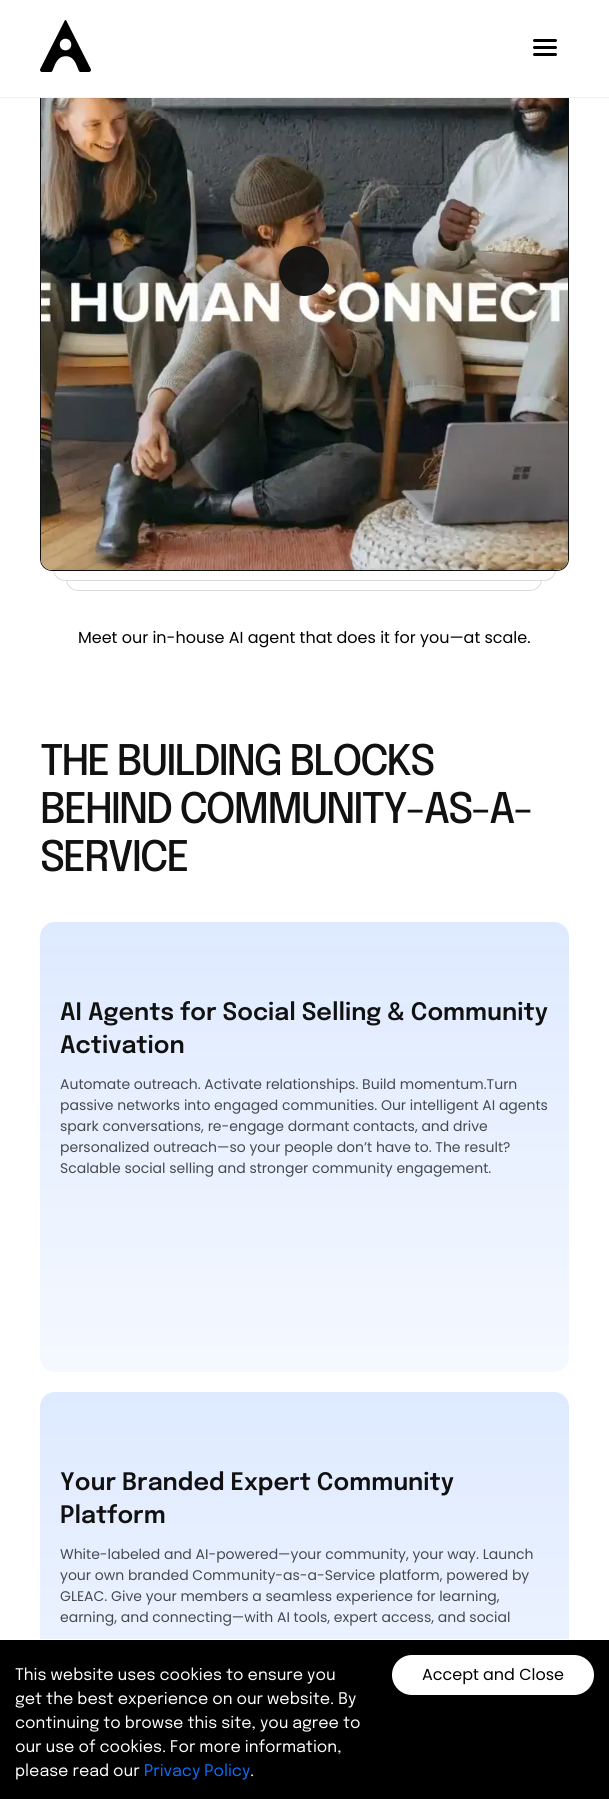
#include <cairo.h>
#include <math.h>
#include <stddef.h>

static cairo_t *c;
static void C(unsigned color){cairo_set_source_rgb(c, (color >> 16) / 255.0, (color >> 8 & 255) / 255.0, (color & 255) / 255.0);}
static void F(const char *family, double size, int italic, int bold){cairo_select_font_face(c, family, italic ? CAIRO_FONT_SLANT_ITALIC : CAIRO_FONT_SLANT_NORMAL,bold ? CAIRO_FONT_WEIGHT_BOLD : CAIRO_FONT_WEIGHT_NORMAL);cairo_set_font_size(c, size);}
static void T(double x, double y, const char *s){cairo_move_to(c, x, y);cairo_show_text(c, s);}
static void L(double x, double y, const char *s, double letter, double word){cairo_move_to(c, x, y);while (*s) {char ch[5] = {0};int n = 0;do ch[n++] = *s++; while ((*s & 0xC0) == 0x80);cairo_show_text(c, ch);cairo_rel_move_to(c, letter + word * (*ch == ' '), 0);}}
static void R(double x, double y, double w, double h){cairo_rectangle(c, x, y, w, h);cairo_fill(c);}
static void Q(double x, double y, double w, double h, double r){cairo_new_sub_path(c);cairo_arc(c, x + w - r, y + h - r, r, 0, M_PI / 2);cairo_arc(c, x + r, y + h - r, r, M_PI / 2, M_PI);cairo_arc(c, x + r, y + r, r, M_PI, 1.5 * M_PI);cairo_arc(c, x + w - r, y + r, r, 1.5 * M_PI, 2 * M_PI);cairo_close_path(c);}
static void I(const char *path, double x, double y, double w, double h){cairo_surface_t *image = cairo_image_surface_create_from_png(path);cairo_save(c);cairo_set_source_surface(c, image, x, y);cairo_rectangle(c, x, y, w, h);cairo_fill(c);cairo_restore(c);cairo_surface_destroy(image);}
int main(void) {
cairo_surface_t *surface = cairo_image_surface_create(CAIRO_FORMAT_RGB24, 609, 1799);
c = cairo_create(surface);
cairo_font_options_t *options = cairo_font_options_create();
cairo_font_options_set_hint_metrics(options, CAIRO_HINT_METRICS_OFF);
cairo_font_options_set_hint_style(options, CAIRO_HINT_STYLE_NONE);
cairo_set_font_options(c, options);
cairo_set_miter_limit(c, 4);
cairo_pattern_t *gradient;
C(0xffffff);
cairo_paint(c);
Q(66.5,-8.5,475,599,11.5);
cairo_set_source_rgba(c,0.067,0.067,0.067,0.15);
cairo_set_line_width(c,1);
cairo_stroke(c);
C(0xffffff);
Q(53.5,-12.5,502,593,11.5);
cairo_fill_preserve(c);
C(0xdbdbdb);
cairo_stroke(c);
Q(40.5,-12.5,528,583,11.5);
C(0x111111);
cairo_stroke(c);
C(0xffffff);
R(40,0,529,97);
C(0xf1f3f4);
R(0,97,609,1);
I("1.png",40,20,51,52);
C(0x000000);
Q(533,39,24,3,1.5);
cairo_fill(c);
Q(533,46,24,3,1.5);
cairo_fill(c);
Q(533,53,24,3,1.5);
cairo_fill(c);
I("2.png",41,98,527,472);
cairo_set_source_rgba(c,0.071,0.071,0.071,0.95);
cairo_arc(c,304,271,25,0,2 * M_PI);
cairo_fill(c);
F("Poppins",16,0,0);
C(0x000000);
T(78,643,"Meet our in-house AI agent that does it for you—at scale.");
F("Epilogue Medium",42,0,0);
C(0x111111);
L(40,775,"THE BUILDING BLOCKS",-2.05,0);
L(40,823,"BEHIND COMMUNITY-AS-A-",-2.05,0);
L(40,871,"SERVICE",-2.05,0);
gradient = cairo_pattern_create_linear(305,922,305,1372);
cairo_pattern_add_color_stop_rgba(gradient,0,0,0.361,1,.13);
cairo_pattern_add_color_stop_rgba(gradient,1,0,0.361,1,.04);
cairo_set_source(c,gradient);
cairo_pattern_destroy(gradient);
Q(40,922,529,450,15);
cairo_fill(c);
F("Epilogue SemiBold",24,0,0);
C(0x111111);
T(60,1020,"AI Agents for Social Selling & Community");
T(60,1053,"Activation");
F("Poppins",14,0,0);
C(0x46494d);
T(60,1089,"Automate outreach. Activate relationships. Build momentum.Turn");
T(60,1110,"passive networks into engaged communities. Our intelligent AI agents");
T(60,1131,"spark conversations, re-engage dormant contacts, and drive");
T(60,1152,"personalized outreach—so your people don’t have to. The result?");
T(60,1173,"Scalable social selling and stronger community engagement.");
gradient = cairo_pattern_create_linear(305,1392,305,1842);
cairo_pattern_add_color_stop_rgba(gradient,0,0.871,0.918,1,1);
cairo_pattern_add_color_stop_rgba(gradient,1,0.961,0.976,1,1);
cairo_set_source(c,gradient);
cairo_pattern_destroy(gradient);
Q(40,1392,529,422,15);
cairo_fill(c);
F("Epilogue SemiBold",24,0,0);
C(0x111111);
T(60,1490,"Your Branded Expert Community");
T(60,1523,"Platform");
F("Poppins",14,0,0);
C(0x46494d);
T(60,1559,"White-labeled and AI-powered—your community, your way. Launch");
T(60,1580,"your own branded Community-as-a-Service platform, powered by");
T(60,1601,"GLEAC. Give your members a seamless experience for learning,");
T(60,1622,"earning, and connecting—with AI tools, expert access, and social");
C(0x000000);
R(0,1640,609,159);
C(0xffffff);
R(40,1639,529,1);
F("Epilogue",16,0,0);
T(15,1680,"This website uses cookies to ensure you");
T(15,1704,"get the best experience on our website. By");
T(15,1728,"continuing to browse this site, you agree to");
T(15,1752,"our use of cookies. For more information,");
T(15,1776,"please read our");
C(0x0d6efd);
T(144,1776,"Privacy Policy");
C(0xffffff);
T(250,1776,".");
Q(392,1655,202,40,20);
cairo_fill(c);
F("Poppins",16,0,0);
C(0x000000);
T(422,1680,"Accept and Close");
cairo_surface_write_to_png(surface, "o.png");
cairo_font_options_destroy(options);
cairo_destroy(c);
cairo_surface_destroy(surface);
return 0;
}
